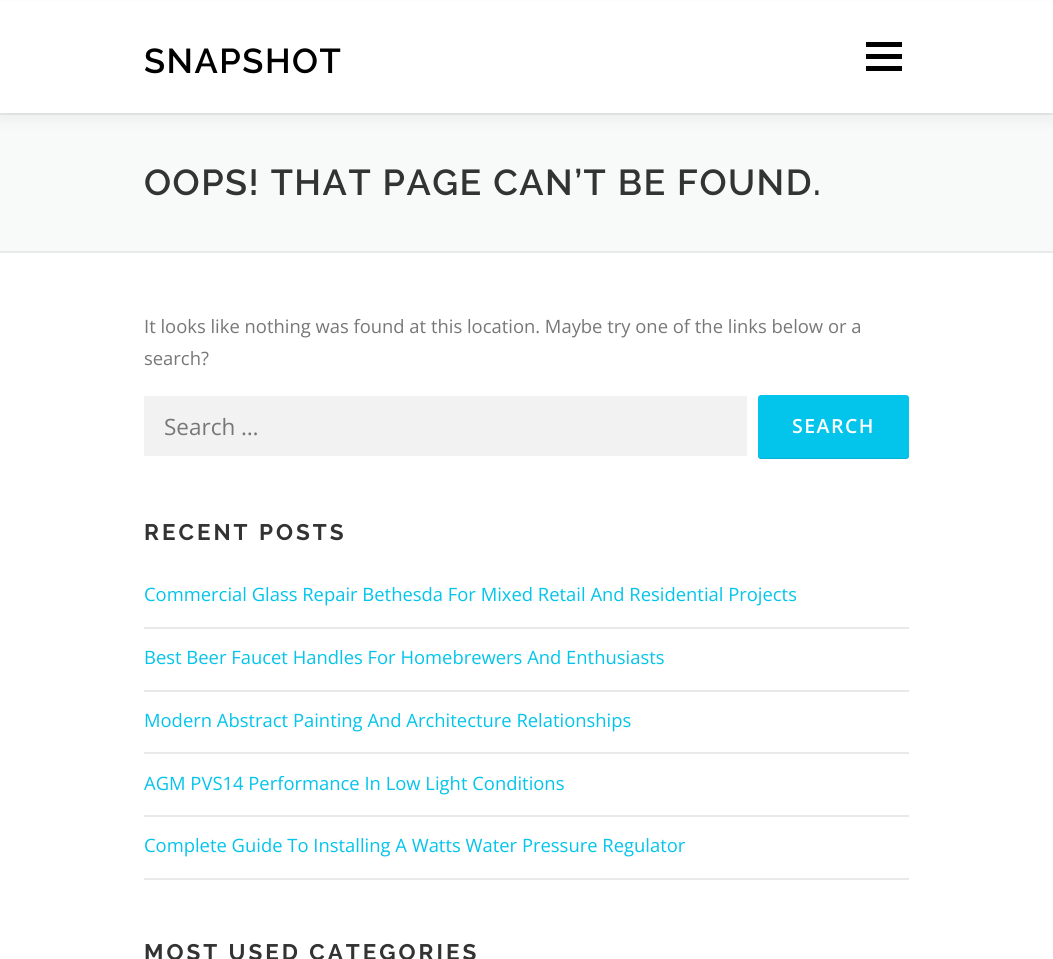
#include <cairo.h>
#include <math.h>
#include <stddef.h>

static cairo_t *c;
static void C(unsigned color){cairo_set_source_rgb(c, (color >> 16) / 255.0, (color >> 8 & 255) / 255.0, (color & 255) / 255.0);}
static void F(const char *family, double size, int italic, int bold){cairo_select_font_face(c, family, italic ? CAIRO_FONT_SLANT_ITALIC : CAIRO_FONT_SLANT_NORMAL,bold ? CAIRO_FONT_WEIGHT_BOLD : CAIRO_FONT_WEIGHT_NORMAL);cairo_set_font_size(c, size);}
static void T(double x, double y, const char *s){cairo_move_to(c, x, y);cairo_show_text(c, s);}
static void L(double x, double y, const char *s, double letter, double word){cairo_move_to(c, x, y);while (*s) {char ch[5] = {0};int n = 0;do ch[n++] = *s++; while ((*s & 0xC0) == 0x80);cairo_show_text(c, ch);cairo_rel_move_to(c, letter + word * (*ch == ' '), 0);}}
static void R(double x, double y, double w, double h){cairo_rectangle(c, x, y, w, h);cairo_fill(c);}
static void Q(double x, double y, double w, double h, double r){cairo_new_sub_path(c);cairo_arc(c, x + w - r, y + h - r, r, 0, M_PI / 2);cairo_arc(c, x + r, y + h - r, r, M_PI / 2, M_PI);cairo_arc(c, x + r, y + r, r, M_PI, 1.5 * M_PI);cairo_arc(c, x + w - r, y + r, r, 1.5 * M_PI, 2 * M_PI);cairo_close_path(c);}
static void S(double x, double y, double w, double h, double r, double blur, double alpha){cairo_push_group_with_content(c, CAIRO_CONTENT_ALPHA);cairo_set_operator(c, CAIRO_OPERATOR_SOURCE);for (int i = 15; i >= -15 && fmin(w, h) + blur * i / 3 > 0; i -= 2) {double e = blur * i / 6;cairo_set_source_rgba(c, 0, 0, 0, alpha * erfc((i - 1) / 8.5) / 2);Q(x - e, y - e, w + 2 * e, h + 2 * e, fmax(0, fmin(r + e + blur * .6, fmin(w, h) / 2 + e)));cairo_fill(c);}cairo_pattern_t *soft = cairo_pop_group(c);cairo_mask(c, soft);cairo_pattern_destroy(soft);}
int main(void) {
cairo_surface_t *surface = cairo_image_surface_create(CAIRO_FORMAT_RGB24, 1053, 959);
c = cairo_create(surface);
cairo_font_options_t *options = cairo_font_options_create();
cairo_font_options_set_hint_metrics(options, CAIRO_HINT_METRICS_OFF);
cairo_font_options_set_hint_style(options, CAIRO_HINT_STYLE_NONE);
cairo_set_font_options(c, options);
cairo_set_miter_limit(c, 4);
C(0xffffff);
cairo_paint(c);
C(0xf8f9f9);
R(0,115,1053,136);
C(0xe9e9e9);
R(0,113,1053,2);
C(0x323232);
S(0,8,1053,112,0,7.5,.06);
C(0xffffff);
R(0,2,1053,111);
F("Raleway SemiBold",34.5,0,0);
C(0x000000);
L(144,73,"SNAPSHOT",1.5,0);
R(866,54,36,5);
R(866,42,36,5);
R(866,66,36,5);
C(0xe9e9e9);
R(0,251,1053,2);
F("Raleway SemiBold",36,0,0);
C(0x333333);
L(144,195,"OOPS! THAT PAGE CAN’T BE FOUND.",1.5,0);
F("Open Sans",18.4,0,0);
C(0x777777);
T(144,333,"It looks like nothing was found at this location. Maybe try one of the links below or a");
T(144,365,"search?");
C(0xf2f2f2);
R(144,396,603,60);
F("Open Sans",22.5,0,0);
C(0x777777);
T(164,435,"Search …");
C(0x03c4eb);
Q(758,395,151,64,3);
cairo_fill(c);
cairo_set_source_rgba(c,0,0,0,0.1);
cairo_new_path(c);
cairo_move_to(c,758,454);
cairo_line_to(c,758,456);
cairo_curve_to(c,758,458,759,459,761,459);
cairo_line_to(c,906,459);
cairo_curve_to(c,908,459,909,458,909,456);
cairo_line_to(c,909,454);
cairo_curve_to(c,909,456,908,458,906,458);
cairo_line_to(c,760,458);
cairo_curve_to(c,759,458,758,456,758,454);
cairo_close_path(c);
cairo_fill(c);
F("Open Sans SemiBold",19.5,0,0);
C(0xffffff);
L(792,433,"SEARCH",1.5,0);
F("Raleway",22.5,0,1);
C(0x333333);
L(144,540,"RECENT POSTS",3,0);
C(0xe9e9e9);
R(144,627,765,2);
F("Open Sans",18.4,0,0);
C(0x03c4eb);
T(144,601,"Commercial Glass Repair Bethesda For Mixed Retail And Residential Projects");
C(0xe9e9e9);
R(144,690,765,2);
C(0x03c4eb);
T(144,664,"Best Beer Faucet Handles For Homebrewers And Enthusiasts");
C(0xe9e9e9);
R(144,752,765,2);
C(0x03c4eb);
T(144,727,"Modern Abstract Painting And Architecture Relationships");
C(0xe9e9e9);
R(144,815,765,2);
C(0x03c4eb);
T(144,790,"AGM PVS14 Performance In Low Light Conditions");
C(0xe9e9e9);
R(144,878,765,2);
C(0x03c4eb);
T(144,852,"Complete Guide To Installing A Watts Water Pressure Regulator");
F("Raleway",22.5,0,1);
C(0x333333);
L(144,960,"MOST USED CATEGORIES",3,0);
cairo_surface_write_to_png(surface, "o.png");
cairo_font_options_destroy(options);
cairo_destroy(c);
cairo_surface_destroy(surface);
return 0;
}
